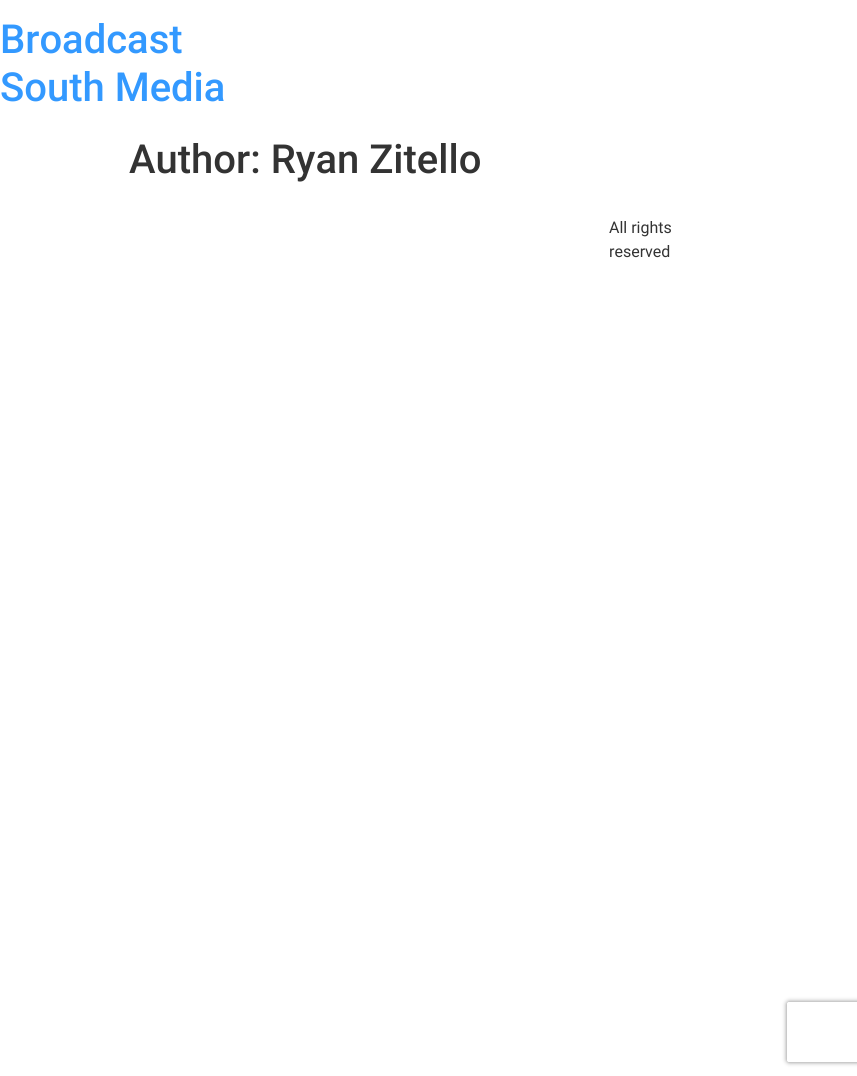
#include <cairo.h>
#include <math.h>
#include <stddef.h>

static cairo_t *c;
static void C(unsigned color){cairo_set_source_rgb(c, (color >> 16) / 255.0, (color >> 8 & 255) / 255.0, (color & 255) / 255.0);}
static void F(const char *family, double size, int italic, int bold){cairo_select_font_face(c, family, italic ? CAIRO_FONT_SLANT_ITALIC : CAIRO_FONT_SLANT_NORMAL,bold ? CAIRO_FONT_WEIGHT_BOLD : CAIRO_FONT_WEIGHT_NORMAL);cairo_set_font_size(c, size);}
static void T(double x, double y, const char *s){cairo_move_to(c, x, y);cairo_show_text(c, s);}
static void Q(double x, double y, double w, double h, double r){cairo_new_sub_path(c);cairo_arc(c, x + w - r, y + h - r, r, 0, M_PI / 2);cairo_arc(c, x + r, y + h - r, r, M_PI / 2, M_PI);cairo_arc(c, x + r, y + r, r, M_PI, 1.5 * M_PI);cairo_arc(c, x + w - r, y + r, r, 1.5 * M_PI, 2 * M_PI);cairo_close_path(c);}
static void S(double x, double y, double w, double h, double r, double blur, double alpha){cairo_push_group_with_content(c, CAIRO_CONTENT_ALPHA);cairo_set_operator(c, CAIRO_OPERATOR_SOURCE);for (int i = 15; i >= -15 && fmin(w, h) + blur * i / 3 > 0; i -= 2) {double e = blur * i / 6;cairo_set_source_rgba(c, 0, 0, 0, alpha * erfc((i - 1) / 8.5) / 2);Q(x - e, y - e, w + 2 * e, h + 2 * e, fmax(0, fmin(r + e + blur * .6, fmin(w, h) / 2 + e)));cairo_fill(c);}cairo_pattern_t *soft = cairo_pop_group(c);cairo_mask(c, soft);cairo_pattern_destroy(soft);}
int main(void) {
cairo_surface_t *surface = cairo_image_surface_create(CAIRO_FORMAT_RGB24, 857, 1076);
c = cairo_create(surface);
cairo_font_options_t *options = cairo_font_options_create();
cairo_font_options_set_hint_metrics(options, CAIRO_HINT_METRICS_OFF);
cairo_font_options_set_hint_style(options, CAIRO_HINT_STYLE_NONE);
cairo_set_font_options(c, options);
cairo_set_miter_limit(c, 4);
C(0xffffff);
cairo_paint(c);
F("Roboto Medium",40,0,0);
C(0x3399ff);
T(0,53,"Broadcast");
T(0,101,"South Media");
C(0x333333);
T(129,173,"Author: Ryan Zitello");
F("Roboto",16,0,0);
T(609,233,"All rights");
T(609,257,"reserved");
cairo_save(c);
cairo_set_fill_rule(c,CAIRO_FILL_RULE_EVEN_ODD);
cairo_new_path(c);
cairo_move_to(c,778,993);
cairo_line_to(c,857,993);
cairo_line_to(c,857,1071);
cairo_line_to(c,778,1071);
cairo_close_path(c);
cairo_move_to(c,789,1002);
cairo_line_to(c,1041,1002);
cairo_curve_to(c,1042,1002,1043,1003,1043,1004);
cairo_line_to(c,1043,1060);
cairo_curve_to(c,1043,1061,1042,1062,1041,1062);
cairo_line_to(c,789,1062);
cairo_curve_to(c,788,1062,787,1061,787,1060);
cairo_line_to(c,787,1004);
cairo_curve_to(c,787,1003,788,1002,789,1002);
cairo_close_path(c);
cairo_clip(c);
C(0x808080);
S(787,1002,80,60,2,2.5,1);
cairo_restore(c);
cairo_surface_write_to_png(surface, "o.png");
cairo_font_options_destroy(options);
cairo_destroy(c);
cairo_surface_destroy(surface);
return 0;
}
